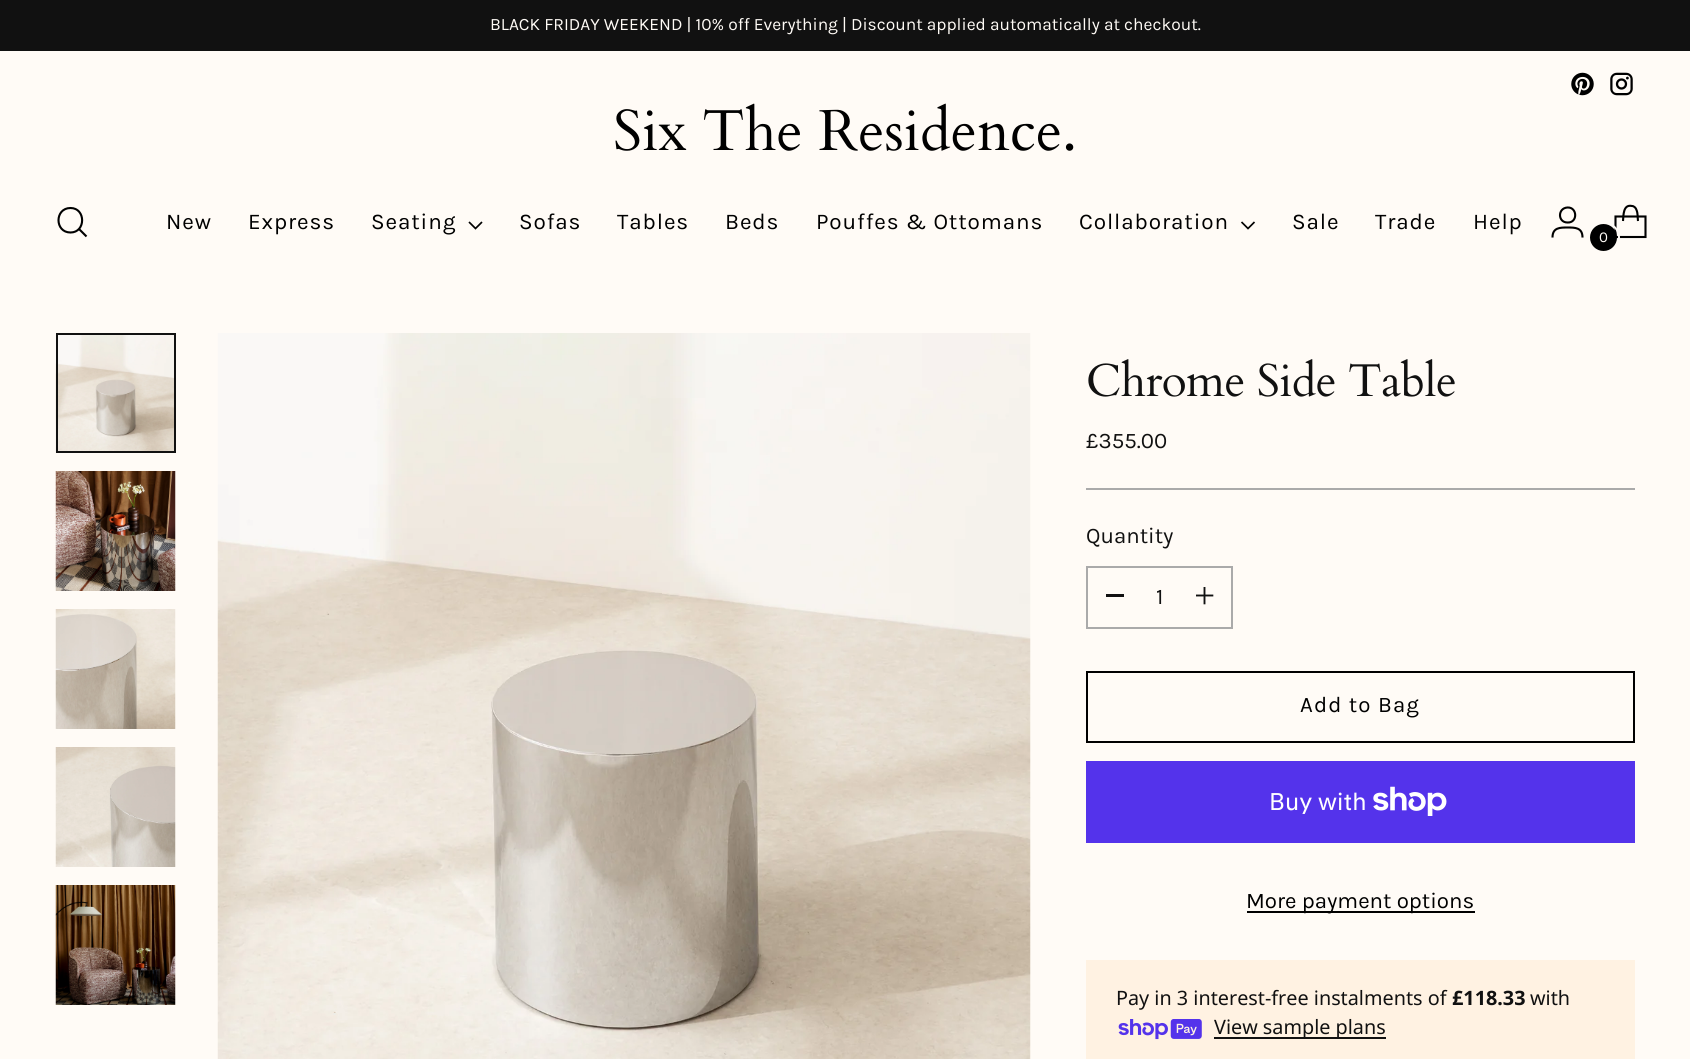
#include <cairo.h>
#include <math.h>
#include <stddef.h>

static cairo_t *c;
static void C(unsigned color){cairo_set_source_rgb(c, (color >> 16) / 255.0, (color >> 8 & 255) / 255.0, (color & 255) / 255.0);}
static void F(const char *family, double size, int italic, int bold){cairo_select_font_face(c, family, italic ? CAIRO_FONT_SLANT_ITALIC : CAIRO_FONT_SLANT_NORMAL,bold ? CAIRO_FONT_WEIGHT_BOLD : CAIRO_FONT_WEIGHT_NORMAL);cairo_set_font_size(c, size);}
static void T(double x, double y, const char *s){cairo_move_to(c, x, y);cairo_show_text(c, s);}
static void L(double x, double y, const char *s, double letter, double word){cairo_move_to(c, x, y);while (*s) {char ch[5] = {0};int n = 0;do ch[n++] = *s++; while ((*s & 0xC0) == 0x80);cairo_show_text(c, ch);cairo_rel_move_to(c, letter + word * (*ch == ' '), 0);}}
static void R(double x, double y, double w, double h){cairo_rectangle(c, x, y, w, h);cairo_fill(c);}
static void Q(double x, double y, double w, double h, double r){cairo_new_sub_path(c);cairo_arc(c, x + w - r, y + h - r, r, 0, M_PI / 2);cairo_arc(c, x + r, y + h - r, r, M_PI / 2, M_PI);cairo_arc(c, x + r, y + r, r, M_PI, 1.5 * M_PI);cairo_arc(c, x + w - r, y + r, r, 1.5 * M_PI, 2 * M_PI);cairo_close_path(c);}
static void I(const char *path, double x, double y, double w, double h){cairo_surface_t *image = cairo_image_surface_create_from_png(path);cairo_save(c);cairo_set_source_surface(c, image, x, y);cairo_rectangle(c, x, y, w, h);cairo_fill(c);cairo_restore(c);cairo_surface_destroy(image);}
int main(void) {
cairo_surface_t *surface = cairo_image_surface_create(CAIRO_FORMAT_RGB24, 1690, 1059);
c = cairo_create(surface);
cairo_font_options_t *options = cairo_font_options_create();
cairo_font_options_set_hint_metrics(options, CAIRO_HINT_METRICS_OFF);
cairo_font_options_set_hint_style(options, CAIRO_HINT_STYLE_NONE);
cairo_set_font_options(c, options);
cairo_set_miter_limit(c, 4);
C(0xfffbf6);
cairo_paint(c);
C(0x111111);
R(0,0,1690,51);
F("Karla",17.35,0,0);
C(0xfffbf6);
T(490,30,"BLACK FRIDAY WEEKEND | 10% off Everything | Discount applied automatically at checkout.");
I("1.png",1571,72,23,24);
I("2.png",1610,72,23,24);
F("Cardo",57.75,0,0);
C(0x000000);
T(613,150,"Six The Residence.");
cairo_new_path(c);
cairo_move_to(c,70.5,232.5);
cairo_curve_to(c,86,232.5,86,208,70.5,208);
cairo_curve_to(c,54.5,208,54.5,232.5,70.5,232.5);
cairo_close_path(c);
cairo_set_line_width(c,2.1);
cairo_set_line_cap(c,CAIRO_LINE_CAP_ROUND);
cairo_stroke(c);
cairo_new_path(c);
cairo_move_to(c,79,229);
cairo_line_to(c,86.5,236.5);
cairo_set_line_cap(c,CAIRO_LINE_CAP_BUTT);
cairo_stroke(c);
F("Karla",22.5,0,0);
L(166,229,"New",.9,0);
L(248,229,"Express",.9,0);
L(371,229,"Seating",.9,0);
cairo_new_path(c);
cairo_move_to(c,469,222);
cairo_line_to(c,475.5,228.5);
cairo_line_to(c,482,222);
cairo_set_line_width(c,1.7);
cairo_stroke(c);
L(519,229,"Sofas",.9,0);
L(617,229,"Tables",.9,0);
L(725,229,"Beds",.9,0);
L(816,229,"Pouffes & Ottomans",.9,0);
L(1079,229,"Collaboration",.9,0);
cairo_new_path(c);
cairo_move_to(c,1241.5,222);
cairo_line_to(c,1248,228.5);
cairo_line_to(c,1254.5,222);
cairo_stroke(c);
L(1292,229,"Sale",.9,0);
L(1375,229,"Trade",.9,0);
L(1473,229,"Help",.9,0);
cairo_new_path(c);
cairo_move_to(c,1567.5,222.5);
cairo_curve_to(c,1578,223,1577.5,207,1567.5,207.5);
cairo_curve_to(c,1557.5,208,1557.5,222.5,1567.5,222.5);
cairo_close_path(c);
cairo_move_to(c,1552.5,237.5);
cairo_curve_to(c,1552.5,227.5,1560,227.5,1567.5,227.5);
cairo_curve_to(c,1575,227.5,1582.5,227.5,1582.5,237.5);
cairo_set_line_width(c,2.1);
cairo_stroke(c);
cairo_new_path(c);
cairo_move_to(c,1638,221);
cairo_curve_to(c,1637.5,217.5,1638,213.5,1636.5,210);
cairo_curve_to(c,1636,208,1634,206,1632,206);
cairo_curve_to(c,1623,204,1623.5,215.5,1623,221);
cairo_set_line_join(c,CAIRO_LINE_JOIN_BEVEL);
cairo_stroke(c);
cairo_new_path(c);
cairo_move_to(c,1645.5,237);
cairo_line_to(c,1645.5,216.5);
cairo_line_to(c,1615.5,216.5);
cairo_line_to(c,1615.5,237);
cairo_close_path(c);
cairo_set_line_join(c,CAIRO_LINE_JOIN_MITER);
cairo_stroke(c);
Q(1590,223,29,30,14.5);
C(0xfffbf6);
cairo_set_line_width(c,2);
cairo_stroke(c);
C(0x000000);
cairo_arc(c,1603.5,237.5,13.5,0,2 * M_PI);
cairo_fill(c);
F("Karla",15,0,0);
C(0xfffbf6);
T(1599,242,"0");
I("3.png",55,333,119,120);
cairo_rectangle(c,57,334,118,118);
C(0x111111);
cairo_stroke(c);
I("4.png",55,471,121,120);
I("5.png",55,609,121,120);
I("6.png",55,747,121,120);
I("7.png",55,885,121,120);
I("8.png",217,333,814,726);
C(0xaaaaaa);
R(1086,488,549,2);
F("Cardo",46,0,0);
C(0x111111);
L(1086,396,"Chrome Side Table",-.5,0);
F("Karla",22.25,0,0);
T(1086,448,"£355.00");
T(1086,543,"Quantity");
cairo_rectangle(c,1087,567,145,61);
C(0xaaaaaa);
cairo_stroke(c);
C(0x111111);
R(1106,594,18,3);
T(1156,604,"1");
I("9.png",1196,587,18,18);
cairo_rectangle(c,1087,672,547,70);
C(0x000000);
cairo_stroke(c);
L(1300,712,"Add to Bag",1.1,0);
C(0x5433eb);
R(1086,761,549,82);
F("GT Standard",24,0,0);
C(0xffffff);
T(1269,810,"Buy with");
I("10.png",1373,786,74,30);
C(0x000000);
R(1247,911,228,2);
F("Karla",22.25,0,0);
T(1246,908,"More payment options");
C(0xfff2e2);
R(1086,960,549,99);
F("Noto Sans",19.8,0,0);
C(0x111111);
T(1116,1005,"Pay in 3 interest-free instalments of");
F("Noto Sans",19.8,0,1);
T(1452,1005,"£118.33");
F("Noto Sans",19.8,0,0);
T(1530,1005,"with");
I("11.png",1118,1019,84,21);
R(1214,1037,172,2);
T(1214,1034,"View sample plans");
cairo_surface_write_to_png(surface, "o.png");
cairo_font_options_destroy(options);
cairo_destroy(c);
cairo_surface_destroy(surface);
return 0;
}
